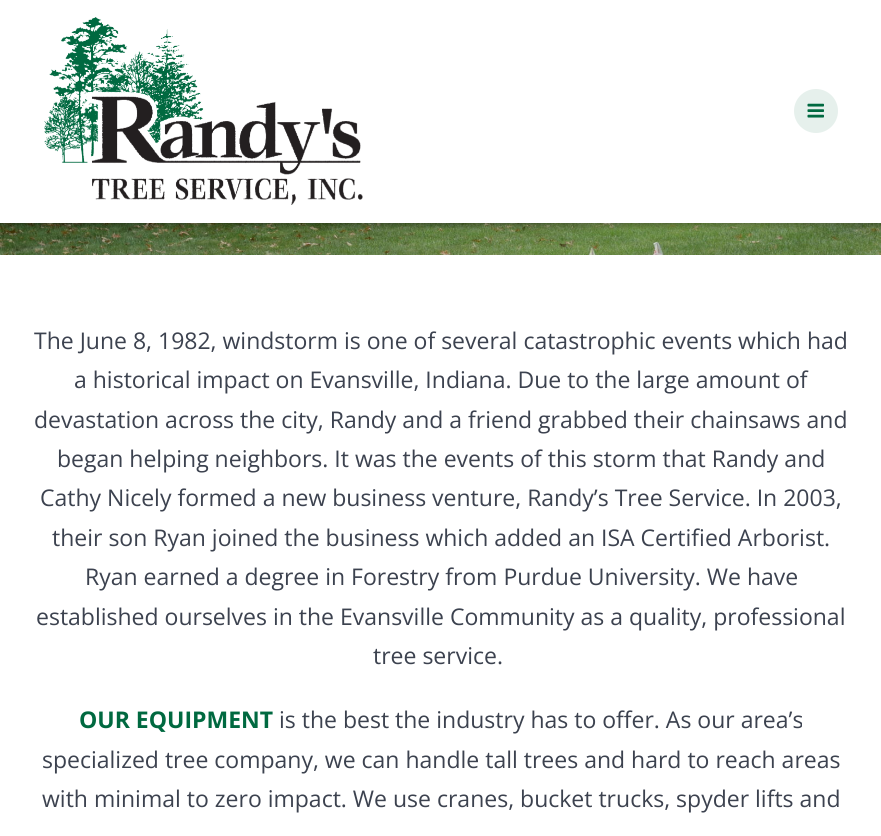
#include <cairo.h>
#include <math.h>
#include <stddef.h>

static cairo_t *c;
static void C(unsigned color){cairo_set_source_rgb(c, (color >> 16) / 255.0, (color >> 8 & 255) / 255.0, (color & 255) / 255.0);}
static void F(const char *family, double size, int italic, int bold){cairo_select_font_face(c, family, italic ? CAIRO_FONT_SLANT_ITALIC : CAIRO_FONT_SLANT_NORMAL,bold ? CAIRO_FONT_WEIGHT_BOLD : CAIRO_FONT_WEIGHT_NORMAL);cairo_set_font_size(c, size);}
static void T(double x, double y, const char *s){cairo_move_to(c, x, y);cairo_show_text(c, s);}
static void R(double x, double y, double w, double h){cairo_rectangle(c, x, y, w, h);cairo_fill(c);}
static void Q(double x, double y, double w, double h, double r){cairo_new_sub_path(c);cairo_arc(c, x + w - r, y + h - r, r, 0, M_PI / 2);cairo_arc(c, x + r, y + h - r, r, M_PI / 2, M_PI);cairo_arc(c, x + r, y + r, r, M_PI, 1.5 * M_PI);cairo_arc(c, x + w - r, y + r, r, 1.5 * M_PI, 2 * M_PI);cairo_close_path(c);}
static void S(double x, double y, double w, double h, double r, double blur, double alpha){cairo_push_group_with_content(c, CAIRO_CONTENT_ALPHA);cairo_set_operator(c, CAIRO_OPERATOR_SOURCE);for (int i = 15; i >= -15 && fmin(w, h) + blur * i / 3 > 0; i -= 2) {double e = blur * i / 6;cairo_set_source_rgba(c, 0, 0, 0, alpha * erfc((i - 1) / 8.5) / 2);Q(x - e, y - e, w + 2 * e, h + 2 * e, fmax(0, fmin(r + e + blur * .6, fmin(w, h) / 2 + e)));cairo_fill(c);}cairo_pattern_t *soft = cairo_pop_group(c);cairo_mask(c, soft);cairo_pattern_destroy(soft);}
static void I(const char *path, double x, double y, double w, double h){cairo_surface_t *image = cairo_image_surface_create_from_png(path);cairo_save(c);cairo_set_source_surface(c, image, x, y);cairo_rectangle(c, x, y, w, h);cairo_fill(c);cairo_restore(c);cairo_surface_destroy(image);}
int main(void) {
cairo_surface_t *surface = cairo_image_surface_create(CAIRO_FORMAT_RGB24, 881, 836);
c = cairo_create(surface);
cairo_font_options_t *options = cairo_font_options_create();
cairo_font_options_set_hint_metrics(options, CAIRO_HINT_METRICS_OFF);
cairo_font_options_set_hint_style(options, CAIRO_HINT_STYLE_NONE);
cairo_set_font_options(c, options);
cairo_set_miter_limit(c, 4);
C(0xffffff);
cairo_paint(c);
I("3.png",0,223,881,32);
I("4.png",303,223,506,32);
C(0x000000);
S(-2,-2,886,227,0,3,.33);
C(0xffffff);
R(0,0,881,223);
I("1.png",44,17,319,188);
C(0xe6f0ec);
cairo_arc(c,816,111,22,0,2 * M_PI);
cairo_fill(c);
I("2.png",807,103,17,15);
F("Open Sans",23,0,0);
C(0x3c424f);
T(34,349,"The June 8, 1982, windstorm is one of several catastrophic events which had");
T(74,388,"a historical impact on Evansville, Indiana. Due to the large amount of");
T(34,428,"devastation across the city, Randy and a friend grabbed their chainsaws and");
T(57,467,"began helping neighbors. It was the events of this storm that Randy and");
T(40,506,"Cathy Nicely formed a new business venture, Randy’s Tree Service. In 2003,");
T(52,546,"their son Ryan joined the business which added an ISA Certified Arborist.");
T(85,585,"Ryan earned a degree in Forestry from Purdue University. We have");
T(36,625,"established ourselves in the Evansville Community as a quality, professional");
T(373,664,"tree service.");
F("Open Sans",23,0,1);
C(0x006940);
T(79,728,"OUR EQUIPMENT");
F("Open Sans",23,0,0);
C(0x3c424f);
T(279,728,"is the best the industry has to offer. As our area’s");
T(42,768,"specialized tree company, we can handle tall trees and hard to reach areas");
T(42,807,"with minimal to zero impact. We use cranes, bucket trucks, spyder lifts and");
cairo_surface_write_to_png(surface, "o.png");
cairo_font_options_destroy(options);
cairo_destroy(c);
cairo_surface_destroy(surface);
return 0;
}
